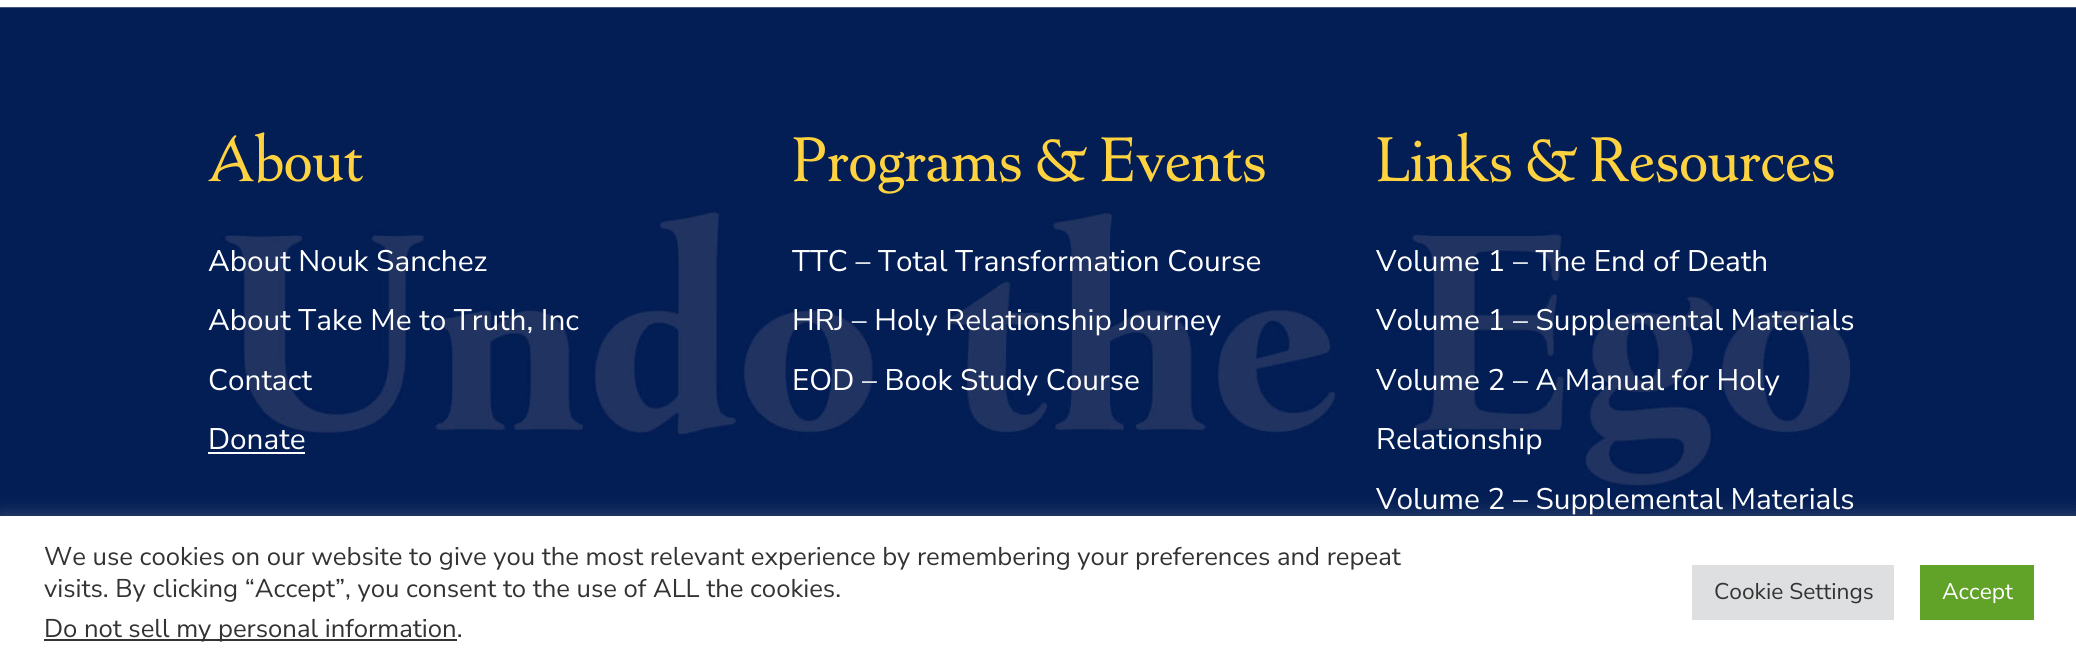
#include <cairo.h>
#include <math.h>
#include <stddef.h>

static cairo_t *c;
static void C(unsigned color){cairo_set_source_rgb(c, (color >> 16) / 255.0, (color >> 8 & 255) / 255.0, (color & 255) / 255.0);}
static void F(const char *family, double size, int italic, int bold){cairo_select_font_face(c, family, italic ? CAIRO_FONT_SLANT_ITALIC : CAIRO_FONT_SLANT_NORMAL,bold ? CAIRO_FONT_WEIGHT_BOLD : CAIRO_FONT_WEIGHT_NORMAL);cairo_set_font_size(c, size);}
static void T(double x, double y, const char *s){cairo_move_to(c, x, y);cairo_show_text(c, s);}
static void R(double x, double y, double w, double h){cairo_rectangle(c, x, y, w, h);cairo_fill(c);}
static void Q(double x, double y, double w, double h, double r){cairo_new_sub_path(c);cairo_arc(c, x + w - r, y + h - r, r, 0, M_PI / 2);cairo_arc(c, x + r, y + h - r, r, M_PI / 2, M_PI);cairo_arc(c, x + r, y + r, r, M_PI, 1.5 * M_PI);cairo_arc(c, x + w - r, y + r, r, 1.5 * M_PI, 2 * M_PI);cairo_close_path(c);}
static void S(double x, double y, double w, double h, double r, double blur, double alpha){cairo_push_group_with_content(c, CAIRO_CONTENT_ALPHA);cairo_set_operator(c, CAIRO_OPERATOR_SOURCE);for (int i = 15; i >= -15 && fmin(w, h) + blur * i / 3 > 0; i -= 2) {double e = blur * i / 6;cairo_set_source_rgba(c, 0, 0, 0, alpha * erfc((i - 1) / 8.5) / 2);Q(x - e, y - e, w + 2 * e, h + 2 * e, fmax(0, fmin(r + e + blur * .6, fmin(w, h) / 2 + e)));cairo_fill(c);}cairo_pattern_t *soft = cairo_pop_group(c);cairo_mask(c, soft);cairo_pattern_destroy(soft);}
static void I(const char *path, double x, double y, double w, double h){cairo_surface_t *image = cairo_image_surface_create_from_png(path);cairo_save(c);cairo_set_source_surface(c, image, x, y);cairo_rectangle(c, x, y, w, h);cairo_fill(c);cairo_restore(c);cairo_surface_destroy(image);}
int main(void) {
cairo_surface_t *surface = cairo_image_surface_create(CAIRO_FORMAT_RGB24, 2076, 668);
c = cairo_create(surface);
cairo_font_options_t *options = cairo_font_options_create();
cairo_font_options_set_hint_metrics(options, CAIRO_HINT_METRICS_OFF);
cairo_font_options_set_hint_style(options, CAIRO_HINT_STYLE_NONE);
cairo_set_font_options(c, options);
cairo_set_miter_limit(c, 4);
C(0xffffff);
cairo_paint(c);
I("1.png",0,7,2076,509);
F("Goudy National",61.25,0,0);
C(0xffd23f);
T(208,181,"About");
F("Nunito Sans ExtraLight",29.75,0,0);
C(0xffffff);
T(208,271,"About Nouk Sanchez");
T(208,330,"About Take Me to Truth, Inc");
T(208,390,"Contact");
T(208,449,"Donate");
R(208,452,97,2);
F("Goudy National",61.25,0,0);
C(0xffd23f);
T(792,181,"Programs & Events");
F("Nunito Sans ExtraLight",29.75,0,0);
C(0xffffff);
T(792,271,"TTC – Total Transformation Course");
T(792,330,"HRJ – Holy Relationship Journey");
T(792,390,"EOD – Book Study Course");
F("Goudy National",61.25,0,0);
C(0xffd23f);
T(1376,181,"Links & Resources");
F("Nunito Sans ExtraLight",29.75,0,0);
C(0xffffff);
T(1376,271,"Volume 1 – The End of Death");
T(1376,330,"Volume 1 – Supplemental Materials");
T(1376,390,"Volume 2 – A Manual for Holy");
T(1376,449,"Relationship");
T(1376,509,"Volume 2 – Supplemental Materials");
C(0xacabab);
S(0,515,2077,152,0,9,.3);
C(0xffffff);
R(0,516,2076,152);
F("Nunito Sans ExtraLight",25.67,0,0);
C(0x333333);
T(44,565,"We use cookies on our website to give you the most relevant experience by remembering your preferences and repeat");
T(44,597,"visits. By clicking “Accept”, you consent to the use of ALL the cookies.");
R(44,639,413,2);
T(44,637,"Do not sell my personal information.");
C(0xdedfe0);
R(1692,565,202,55);
F("Nunito Sans ExtraLight",22.75,0,0);
C(0x333333);
T(1714,599,"Cookie Settings");
C(0x61a229);
R(1920,565,114,55);
C(0xffffff);
T(1942,599,"Accept");
cairo_surface_write_to_png(surface, "o.png");
cairo_font_options_destroy(options);
cairo_destroy(c);
cairo_surface_destroy(surface);
return 0;
}
